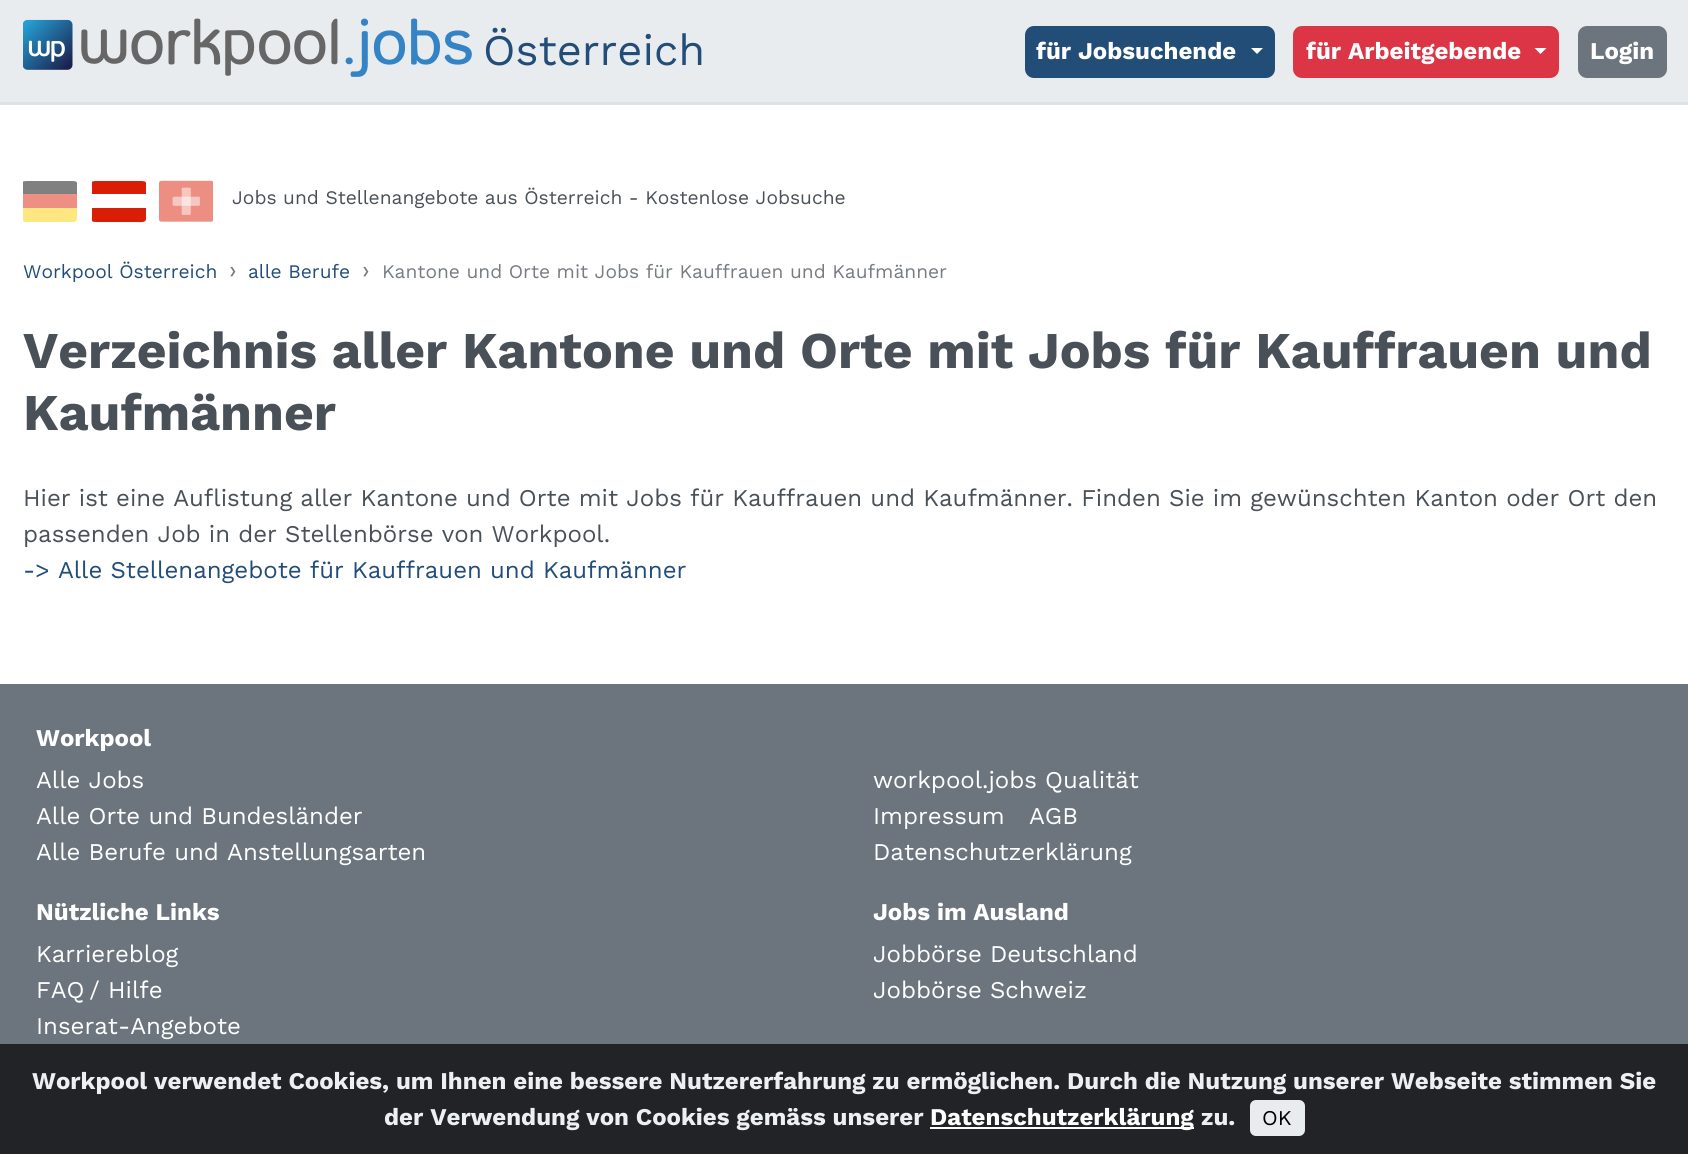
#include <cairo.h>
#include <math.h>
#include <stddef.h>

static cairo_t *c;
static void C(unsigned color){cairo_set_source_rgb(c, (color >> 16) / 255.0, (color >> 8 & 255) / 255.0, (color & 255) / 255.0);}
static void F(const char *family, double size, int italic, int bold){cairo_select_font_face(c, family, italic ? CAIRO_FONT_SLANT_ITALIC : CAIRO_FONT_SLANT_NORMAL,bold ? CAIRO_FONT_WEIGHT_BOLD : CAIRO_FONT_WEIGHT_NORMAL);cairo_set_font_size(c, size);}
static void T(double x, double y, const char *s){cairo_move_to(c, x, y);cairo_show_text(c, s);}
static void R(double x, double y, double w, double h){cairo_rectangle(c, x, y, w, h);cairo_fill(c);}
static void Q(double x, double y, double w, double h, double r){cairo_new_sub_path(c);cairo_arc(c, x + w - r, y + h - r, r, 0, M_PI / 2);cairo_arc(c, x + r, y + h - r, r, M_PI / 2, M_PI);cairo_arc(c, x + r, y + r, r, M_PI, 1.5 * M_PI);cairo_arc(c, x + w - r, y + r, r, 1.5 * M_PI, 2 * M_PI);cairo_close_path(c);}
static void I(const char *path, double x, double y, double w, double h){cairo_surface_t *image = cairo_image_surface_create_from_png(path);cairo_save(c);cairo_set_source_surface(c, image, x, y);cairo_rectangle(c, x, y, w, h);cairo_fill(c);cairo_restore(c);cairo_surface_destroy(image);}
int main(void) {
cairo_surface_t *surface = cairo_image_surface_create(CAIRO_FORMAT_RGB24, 1688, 1154);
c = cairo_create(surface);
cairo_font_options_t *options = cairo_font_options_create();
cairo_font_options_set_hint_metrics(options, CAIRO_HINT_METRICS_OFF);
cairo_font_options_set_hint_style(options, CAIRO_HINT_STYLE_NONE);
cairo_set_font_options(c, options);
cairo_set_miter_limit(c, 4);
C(0xffffff);
cairo_paint(c);
C(0xe9ecef);
R(0,0,1688,102);
C(0xdee2e6);
R(0,102,1688,3);
I("1.png",23,18,449,59);
F("Work Sans",43.5,0,0);
C(0x224d78);
T(483,65,"Österreich");
C(0x224d77);
Q(1025,26,250,52,9);
cairo_fill(c);
F("Work Sans",24,0,1);
C(0xffffff);
T(1036,59,"für Jobsuchende");
cairo_new_path(c);
cairo_move_to(c,1251,48);
cairo_line_to(c,1263,48);
cairo_line_to(c,1257,54);
cairo_close_path(c);
cairo_fill(c);
C(0xdc3545);
Q(1293,26,266,52,9);
cairo_fill(c);
C(0xffffff);
T(1306,59,"für Arbeitgebende");
cairo_new_path(c);
cairo_move_to(c,1534.5,48);
cairo_line_to(c,1546.5,48);
cairo_line_to(c,1540.5,54);
cairo_close_path(c);
cairo_fill(c);
C(0x6c757d);
Q(1578,26,89,52,9);
cairo_fill(c);
C(0xffffff);
T(1590,59,"Login");
cairo_save(c);
cairo_rectangle(c,23,174,54,54);
cairo_clip(c);
C(0x808080);
cairo_new_path(c);
cairo_move_to(c,77,194);
cairo_line_to(c,22,194);
cairo_curve_to(c,22,180,19,181,33,181);
cairo_line_to(c,66,181);
cairo_curve_to(c,80,181,77,180,77,194);
cairo_close_path(c);
cairo_fill(c);
cairo_restore(c);
C(0xed8f82);
R(23,194,54,14);
cairo_save(c);
cairo_rectangle(c,23,174,54,54);
cairo_clip(c);
C(0xfee780);
cairo_new_path(c);
cairo_move_to(c,77,219);
cairo_curve_to(c,77,223,71,222,66,222);
cairo_line_to(c,33,222);
cairo_curve_to(c,19,222,23,223,23,208);
cairo_line_to(c,77,208);
cairo_close_path(c);
cairo_fill(c);
cairo_restore(c);
cairo_save(c);
cairo_rectangle(c,92,174,54,54);
cairo_clip(c);
C(0xda1e05);
cairo_new_path(c);
cairo_move_to(c,146,219);
cairo_curve_to(c,146,223,140,222,135,222);
cairo_line_to(c,102,222);
cairo_curve_to(c,88,222,92,223,92,208);
cairo_line_to(c,146,208);
cairo_close_path(c);
cairo_move_to(c,146,194);
cairo_line_to(c,92,194);
cairo_curve_to(c,92,180,88,181,102,181);
cairo_line_to(c,135,181);
cairo_curve_to(c,149,181,146,180,146,194);
cairo_close_path(c);
cairo_fill(c);
cairo_restore(c);
I("2.png",159,180,54,42);
F("Work Sans",19.2,0,0);
C(0x495057);
T(232,204,"Jobs und Stellenangebote aus Österreich - Kostenlose Jobsuche");
C(0x224d78);
T(23,278,"Workpool Österreich");
F("Work Sans",24,0,0);
C(0x777c81);
T(229,278,"›");
F("Work Sans",19.2,0,0);
C(0x224d78);
T(248,278,"alle Berufe");
F("Work Sans",24,0,0);
C(0x777c81);
T(362,278,"›");
F("Work Sans",19.2,0,0);
T(382,278,"Kantone und Orte mit Jobs für Kauffrauen und Kaufmänner");
F("Work Sans",51.5,0,1);
C(0x495057);
T(23,368,"Verzeichnis aller Kantone und Orte mit Jobs für Kauffrauen und");
T(23,430,"Kaufmänner");
F("Work Sans",24,0,0);
T(23,506,"Hier ist eine Auflistung aller Kantone und Orte mit Jobs für Kauffrauen und Kaufmänner. Finden Sie im gewünschten Kanton oder Ort den");
T(23,542,"passenden Job in der Stellenbörse von Workpool.");
C(0x224d78);
T(23,578,"-> Alle Stellenangebote für Kauffrauen und Kaufmänner");
C(0x6c757d);
R(0,684,1688,360);
F("Work Sans",24,0,1);
C(0xffffff);
T(36,746,"Workpool");
F("Work Sans",24,0,0);
T(36,788,"Alle Jobs");
T(36,824,"Alle Orte und Bundesländer");
T(36,860,"Alle Berufe und Anstellungsarten");
T(873,788,"workpool.jobs Qualität");
T(873,824,"Impressum");
T(1029,824,"AGB");
T(873,860,"Datenschutzerklärung");
F("Work Sans",24,0,1);
T(36,920,"Nützliche Links");
F("Work Sans",24,0,0);
T(36,962,"Karriereblog");
T(36,998,"FAQ / Hilfe");
T(36,1034,"Inserat-Angebote");
F("Work Sans",24,0,1);
T(873,920,"Jobs im Ausland");
F("Work Sans",24,0,0);
T(873,962,"Jobbörse Deutschland");
T(873,998,"Jobbörse Schweiz");
C(0x212327);
R(0,1044,1688,110);
F("Work Sans",24,0,1);
C(0xecf0f1);
T(32,1089,"Workpool verwendet Cookies, um Ihnen eine bessere Nutzererfahrung zu ermöglichen. Durch die Nutzung unserer Webseite stimmen Sie");
T(384,1125,"der Verwendung von Cookies gemäss unserer");
C(0xffffff);
R(930,1127,264,2);
T(930,1125,"Datenschutzerklärung");
C(0xecf0f1);
T(1201,1125,"zu.");
C(0xe9ecef);
Q(1251,1101,53,34,5);
cairo_fill_preserve(c);
cairo_stroke(c);
F("Work Sans",21,0,0);
C(0x000000);
T(1262,1125,"OK");
cairo_surface_write_to_png(surface, "o.png");
cairo_font_options_destroy(options);
cairo_destroy(c);
cairo_surface_destroy(surface);
return 0;
}
